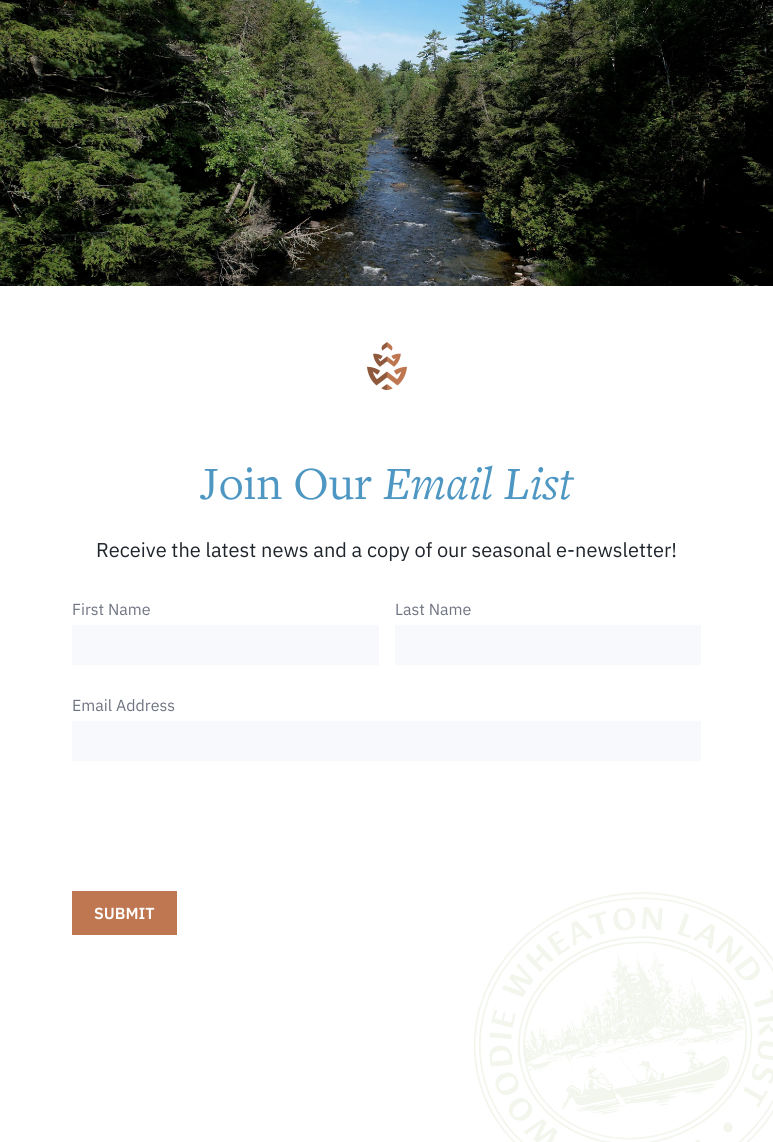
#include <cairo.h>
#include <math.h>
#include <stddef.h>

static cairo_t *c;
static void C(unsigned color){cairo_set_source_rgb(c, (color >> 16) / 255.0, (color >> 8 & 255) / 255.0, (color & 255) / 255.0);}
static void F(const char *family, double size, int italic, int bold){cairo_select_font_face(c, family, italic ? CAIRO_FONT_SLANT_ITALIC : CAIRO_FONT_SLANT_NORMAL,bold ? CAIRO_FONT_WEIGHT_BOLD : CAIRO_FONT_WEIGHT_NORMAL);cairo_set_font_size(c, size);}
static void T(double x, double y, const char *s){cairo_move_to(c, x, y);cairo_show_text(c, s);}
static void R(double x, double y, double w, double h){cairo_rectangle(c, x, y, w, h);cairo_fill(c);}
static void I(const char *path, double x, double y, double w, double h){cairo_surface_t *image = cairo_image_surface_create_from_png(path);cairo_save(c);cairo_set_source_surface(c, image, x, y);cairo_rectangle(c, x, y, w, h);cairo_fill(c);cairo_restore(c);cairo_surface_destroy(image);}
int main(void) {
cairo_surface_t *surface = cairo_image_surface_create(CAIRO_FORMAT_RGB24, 773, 1142);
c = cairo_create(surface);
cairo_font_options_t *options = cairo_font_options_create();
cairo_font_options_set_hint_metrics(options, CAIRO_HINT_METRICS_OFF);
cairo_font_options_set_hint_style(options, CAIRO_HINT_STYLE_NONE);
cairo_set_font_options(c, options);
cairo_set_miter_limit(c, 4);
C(0xffffff);
cairo_paint(c);
I("1.png",0,0,773,286);
I("2.png",473,892,300,250);
I("3.png",367,342,40,48);
F("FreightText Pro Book",48,0,0);
C(0x4e97c3);
T(200,499,"Join Our");
F("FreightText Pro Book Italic",48,1,0);
T(383,499,"Email List");
F("IBM Plex Sans",20,0,0);
C(0x1f252c);
T(96,557,"Receive the latest news and a copy of our seasonal e-newsletter!");
F("IBM Plex Sans",16,0,0);
C(0x6f7482);
T(72,615,"First Name");
C(0xf7f9fc);
R(72,625,307,40);
C(0x6f7482);
T(395,615,"Last Name");
C(0xf7f9fc);
R(395,625,306,40);
C(0x6f7482);
T(72,711,"Email Address");
C(0xf7f9fc);
R(72,721,629,40);
C(0xbf7752);
R(72,891,105,44);
F("IBM Plex Sans SemiBold",16,0,0);
C(0xffffff);
T(94,919,"SUBMIT");
cairo_surface_write_to_png(surface, "o.png");
cairo_font_options_destroy(options);
cairo_destroy(c);
cairo_surface_destroy(surface);
return 0;
}
